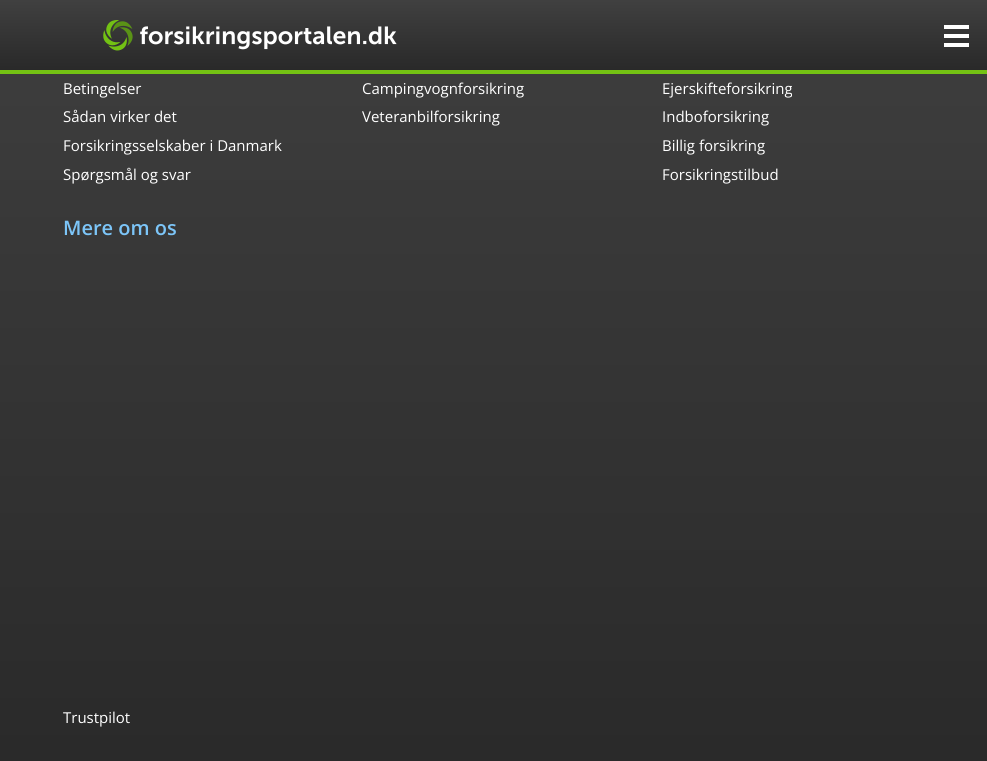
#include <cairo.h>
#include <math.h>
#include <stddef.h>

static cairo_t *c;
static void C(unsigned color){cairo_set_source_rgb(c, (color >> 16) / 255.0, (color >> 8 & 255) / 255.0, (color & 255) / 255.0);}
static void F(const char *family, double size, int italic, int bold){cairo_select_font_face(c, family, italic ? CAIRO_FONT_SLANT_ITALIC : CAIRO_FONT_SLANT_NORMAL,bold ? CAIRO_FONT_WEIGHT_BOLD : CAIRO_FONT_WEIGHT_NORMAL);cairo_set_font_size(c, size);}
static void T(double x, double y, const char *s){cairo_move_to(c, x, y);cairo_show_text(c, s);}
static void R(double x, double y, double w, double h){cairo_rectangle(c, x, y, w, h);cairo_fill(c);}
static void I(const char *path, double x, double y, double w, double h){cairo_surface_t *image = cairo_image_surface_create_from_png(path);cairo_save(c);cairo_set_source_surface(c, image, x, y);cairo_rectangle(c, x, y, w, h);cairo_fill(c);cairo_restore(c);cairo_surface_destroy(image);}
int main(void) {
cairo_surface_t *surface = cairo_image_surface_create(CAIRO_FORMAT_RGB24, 987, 761);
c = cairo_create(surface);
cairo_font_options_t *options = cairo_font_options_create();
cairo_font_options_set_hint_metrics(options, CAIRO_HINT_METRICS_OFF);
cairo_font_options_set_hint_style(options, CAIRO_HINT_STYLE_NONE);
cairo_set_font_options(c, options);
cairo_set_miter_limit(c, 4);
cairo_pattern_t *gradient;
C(0xffffff);
cairo_paint(c);
gradient = cairo_pattern_create_linear(494,70,494,0);
cairo_pattern_add_color_stop_rgba(gradient,0,0.161,0.161,0.161,1);
cairo_pattern_add_color_stop_rgba(gradient,1,0.251,0.251,0.251,1);
cairo_set_source(c,gradient);
cairo_pattern_destroy(gradient);
R(0,0,987,70);
C(0x74c214);
R(0,70,987,4);
I("1.png",103,20,294,31);
C(0xffffff);
R(944,25,25,4);
R(944,34,25,4);
R(944,43,25,4);
gradient = cairo_pattern_create_linear(494,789,494,-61);
cairo_pattern_add_color_stop_rgba(gradient,0,0.161,0.161,0.161,1);
cairo_pattern_add_color_stop_rgba(gradient,1,0.251,0.251,0.251,1);
cairo_set_source(c,gradient);
cairo_pattern_destroy(gradient);
R(0,74,987,687);
F("Open Sans",15,0,0);
C(0xffffff);
T(63,94,"Betingelser");
T(63,122,"Sådan virker det");
T(63,151,"Forsikringsselskaber i Danmark");
T(63,180,"Spørgsmål og svar");
T(362,94,"Campingvognforsikring");
T(362,122,"Veteranbilforsikring");
T(662,94,"Ejerskifteforsikring");
T(662,122,"Indboforsikring");
T(662,151,"Billig forsikring");
T(662,180,"Forsikringstilbud");
F("Open Sans SemiBold",20,0,0);
C(0x7cc5f8);
T(63,235,"Mere om os");
F("Open Sans",15,0,0);
C(0xffffff);
T(63,723,"Trustpilot");
cairo_surface_write_to_png(surface, "o.png");
cairo_font_options_destroy(options);
cairo_destroy(c);
cairo_surface_destroy(surface);
return 0;
}
